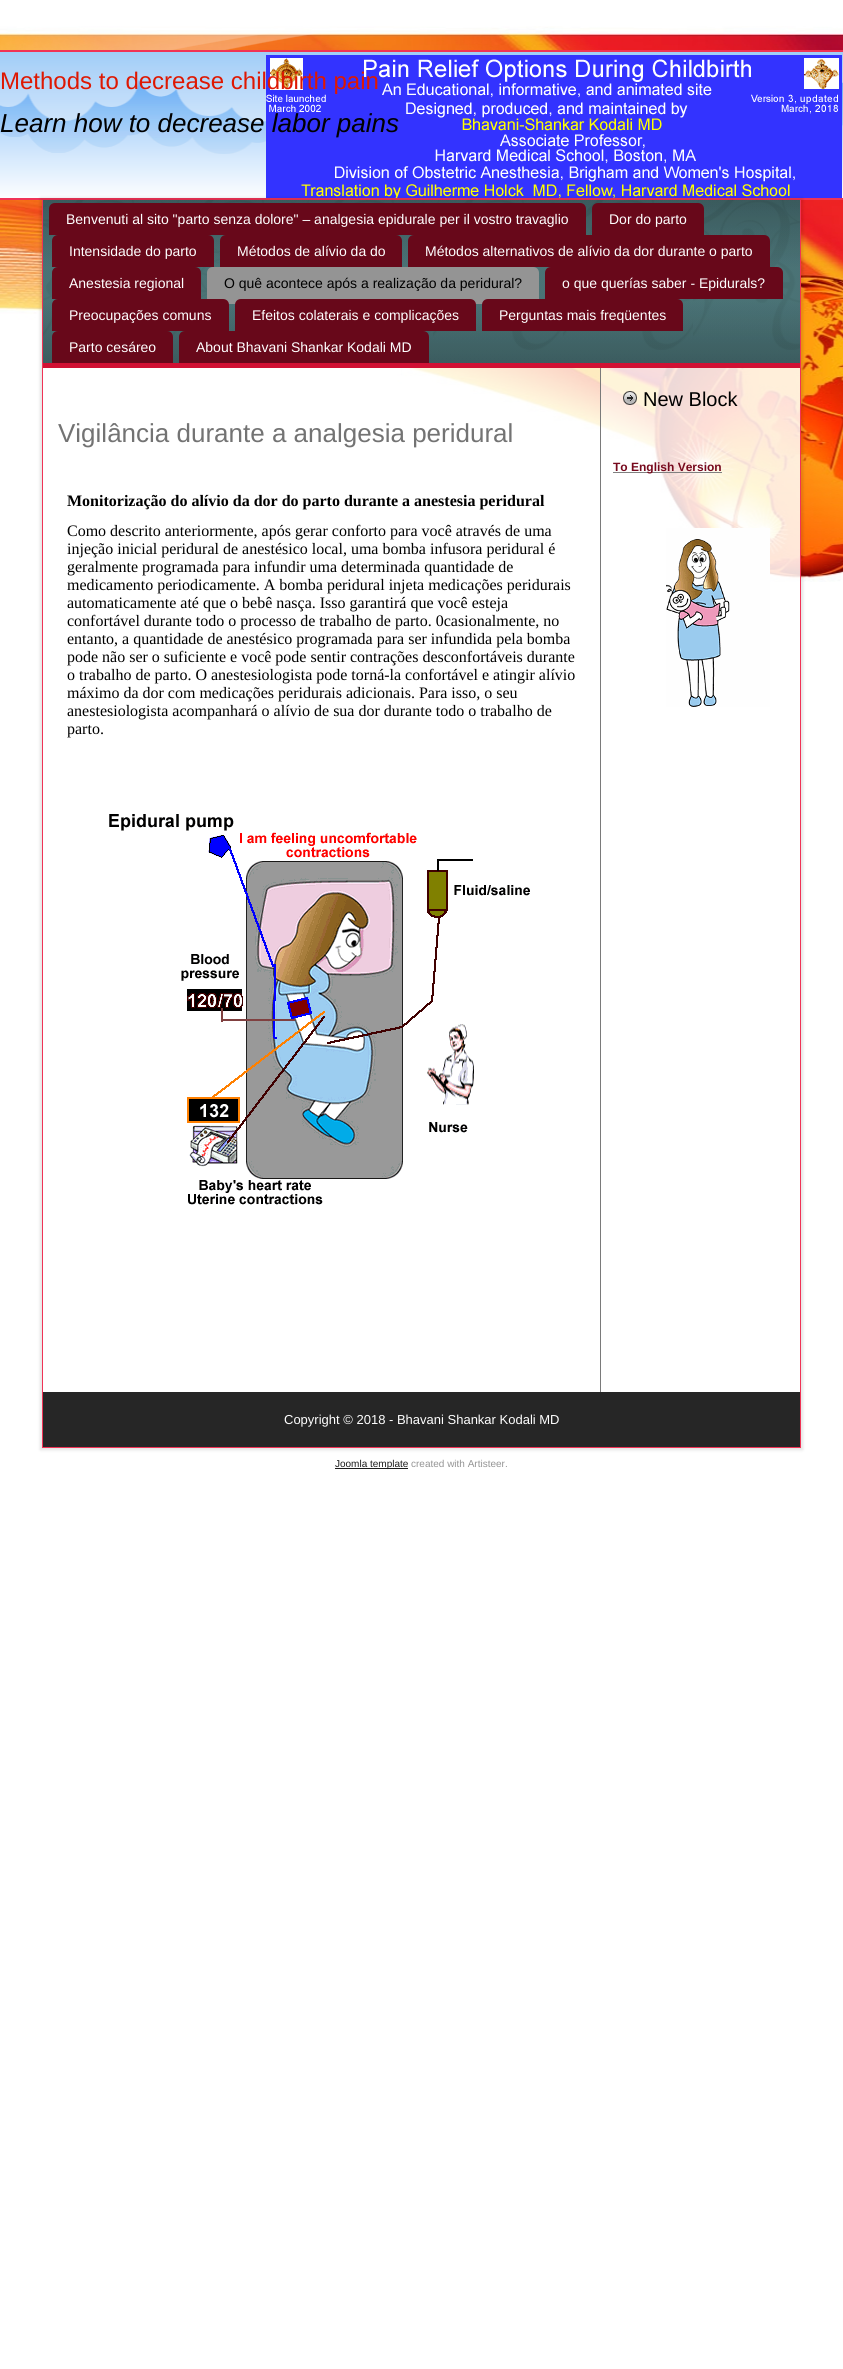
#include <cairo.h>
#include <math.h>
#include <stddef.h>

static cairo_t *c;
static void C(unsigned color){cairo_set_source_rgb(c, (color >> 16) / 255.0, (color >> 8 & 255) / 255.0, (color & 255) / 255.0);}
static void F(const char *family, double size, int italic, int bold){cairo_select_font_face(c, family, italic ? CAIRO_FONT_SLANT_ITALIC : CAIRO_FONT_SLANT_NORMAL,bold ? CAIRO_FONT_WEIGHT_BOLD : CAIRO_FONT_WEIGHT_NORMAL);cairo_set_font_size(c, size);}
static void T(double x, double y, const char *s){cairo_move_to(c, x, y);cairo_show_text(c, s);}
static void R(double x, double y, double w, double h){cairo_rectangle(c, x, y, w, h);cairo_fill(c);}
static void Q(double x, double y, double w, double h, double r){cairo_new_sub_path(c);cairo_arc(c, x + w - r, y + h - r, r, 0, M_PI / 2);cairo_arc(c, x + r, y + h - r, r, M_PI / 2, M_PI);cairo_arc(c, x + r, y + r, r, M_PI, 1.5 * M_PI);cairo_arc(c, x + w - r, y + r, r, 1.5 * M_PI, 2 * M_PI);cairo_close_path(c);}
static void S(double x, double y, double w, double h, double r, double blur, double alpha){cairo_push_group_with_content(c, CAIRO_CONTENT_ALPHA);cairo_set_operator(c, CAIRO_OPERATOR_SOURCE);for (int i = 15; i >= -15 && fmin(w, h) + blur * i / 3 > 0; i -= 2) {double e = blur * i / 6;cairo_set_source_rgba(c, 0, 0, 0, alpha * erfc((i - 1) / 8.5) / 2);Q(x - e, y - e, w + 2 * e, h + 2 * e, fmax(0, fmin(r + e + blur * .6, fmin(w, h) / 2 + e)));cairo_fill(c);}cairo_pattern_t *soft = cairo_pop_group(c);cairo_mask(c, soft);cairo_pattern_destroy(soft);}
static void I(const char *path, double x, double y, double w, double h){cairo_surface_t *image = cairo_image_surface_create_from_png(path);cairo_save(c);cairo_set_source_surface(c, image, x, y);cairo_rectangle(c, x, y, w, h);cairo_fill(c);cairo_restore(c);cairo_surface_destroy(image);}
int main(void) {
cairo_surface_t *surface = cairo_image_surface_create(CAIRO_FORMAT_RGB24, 843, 2369);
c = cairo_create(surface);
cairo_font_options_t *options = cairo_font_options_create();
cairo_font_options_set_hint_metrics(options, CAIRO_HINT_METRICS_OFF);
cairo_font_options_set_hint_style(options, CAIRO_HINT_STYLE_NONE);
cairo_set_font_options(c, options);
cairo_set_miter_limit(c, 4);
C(0xffffff);
cairo_paint(c);
I("1.png",0,26,843,556);
I("2.png",0,52,843,146);
C(0xf03356);
R(0,50,843,2);
R(0,198,843,2);
I("3.png",266,55,576,143);
F("Liberation Sans",24,0,0);
C(0xde1802);
T(0,89,"Methods to decrease childbirth pain");
F("Liberation Sans",26,1,0);
C(0x000000);
T(0,132,"Learn how to decrease labor pains");
cairo_save(c);
cairo_set_fill_rule(c,CAIRO_FILL_RULE_EVEN_ODD);
cairo_new_path(c);
cairo_move_to(c,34,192);
cairo_line_to(c,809,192);
cairo_line_to(c,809,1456);
cairo_line_to(c,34,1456);
cairo_close_path(c);
cairo_move_to(c,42,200);
cairo_line_to(c,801,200);
cairo_line_to(c,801,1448);
cairo_line_to(c,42,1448);
cairo_close_path(c);
cairo_clip(c);
C(0x000000);
S(40,198,763,1252,0,1.5,.11);
cairo_restore(c);
cairo_set_source_rgba(c,1,1,1,0.74);
R(402,368,398,214);
C(0xf03356);
R(800,200,1,1248);
R(42,1447,759,1);
R(42,200,1,1248);
I("4.png",43,200,757,163);
C(0xd11033);
R(43,363,757,5);
C(0x68081a);
cairo_new_path(c);
cairo_move_to(c,55,203);
cairo_line_to(c,580,203);
cairo_curve_to(c,583.5,203,586,205.5,586,209);
cairo_line_to(c,586,235);
cairo_line_to(c,49,235);
cairo_line_to(c,49,209);
cairo_curve_to(c,49,205.5,51.5,203,55,203);
cairo_close_path(c);
cairo_fill(c);
F("Liberation Sans",14,0,0);
C(0xffffff);
T(66,224,"Benvenuti al sito \"parto senza dolore\" – analgesia epidurale per il vostro travaglio");
C(0x68081a);
cairo_new_path(c);
cairo_move_to(c,598,203);
cairo_line_to(c,698,203);
cairo_curve_to(c,701.5,203,704,205.5,704,209);
cairo_line_to(c,704,235);
cairo_line_to(c,592,235);
cairo_line_to(c,592,209);
cairo_curve_to(c,592,205.5,594.5,203,598,203);
cairo_close_path(c);
cairo_fill(c);
C(0xffffff);
T(609,224,"Dor do parto");
C(0x68081a);
cairo_new_path(c);
cairo_move_to(c,58,235);
cairo_line_to(c,208,235);
cairo_curve_to(c,211.5,235,214,237.5,214,241);
cairo_line_to(c,214,267);
cairo_line_to(c,52,267);
cairo_line_to(c,52,241);
cairo_curve_to(c,52,237.5,54.5,235,58,235);
cairo_close_path(c);
cairo_fill(c);
C(0xffffff);
T(69,256,"Intensidade do parto");
C(0x68081a);
cairo_new_path(c);
cairo_move_to(c,226,235);
cairo_line_to(c,396,235);
cairo_curve_to(c,399.5,235,402,237.5,402,241);
cairo_line_to(c,402,267);
cairo_line_to(c,220,267);
cairo_line_to(c,220,241);
cairo_curve_to(c,220,237.5,222.5,235,226,235);
cairo_close_path(c);
cairo_fill(c);
C(0xffffff);
T(237,256,"Métodos de alívio da do");
C(0x68081a);
cairo_new_path(c);
cairo_move_to(c,414,235);
cairo_line_to(c,764,235);
cairo_curve_to(c,767.5,235,770,237.5,770,241);
cairo_line_to(c,770,267);
cairo_line_to(c,408,267);
cairo_line_to(c,408,241);
cairo_curve_to(c,408,237.5,410.5,235,414,235);
cairo_close_path(c);
cairo_fill(c);
C(0xffffff);
T(425,256,"Métodos alternativos de alívio da dor durante o parto");
C(0x68081a);
cairo_new_path(c);
cairo_move_to(c,58,267);
cairo_line_to(c,195,267);
cairo_curve_to(c,198.5,267,201,269.5,201,273);
cairo_line_to(c,201,299);
cairo_line_to(c,52,299);
cairo_line_to(c,52,273);
cairo_curve_to(c,52,269.5,54.5,267,58,267);
cairo_close_path(c);
cairo_fill(c);
C(0xffffff);
T(69,288,"Anestesia regional");
C(0x949494);
cairo_new_path(c);
cairo_move_to(c,213,267);
cairo_line_to(c,533,267);
cairo_curve_to(c,536.5,267,539,269.5,539,273);
cairo_line_to(c,539,304);
cairo_line_to(c,207,304);
cairo_line_to(c,207,273);
cairo_curve_to(c,207,269.5,209.5,267,213,267);
cairo_close_path(c);
cairo_fill(c);
C(0x000000);
T(224,288,"O quê acontece após a realização da peridural?");
C(0x68081a);
cairo_new_path(c);
cairo_move_to(c,551,267);
cairo_line_to(c,777,267);
cairo_curve_to(c,780.5,267,783,269.5,783,273);
cairo_line_to(c,783,299);
cairo_line_to(c,545,299);
cairo_line_to(c,545,273);
cairo_curve_to(c,545,269.5,547.5,267,551,267);
cairo_close_path(c);
cairo_fill(c);
C(0xffffff);
T(562,288,"o que querías saber - Epidurals?");
C(0x68081a);
cairo_new_path(c);
cairo_move_to(c,58,299);
cairo_line_to(c,223,299);
cairo_curve_to(c,226.5,299,229,301.5,229,305);
cairo_line_to(c,229,331);
cairo_line_to(c,52,331);
cairo_line_to(c,52,305);
cairo_curve_to(c,52,301.5,54.5,299,58,299);
cairo_close_path(c);
cairo_fill(c);
C(0xffffff);
T(69,320,"Preocupações comuns");
C(0x68081a);
cairo_new_path(c);
cairo_move_to(c,241,299);
cairo_line_to(c,470,299);
cairo_curve_to(c,473.5,299,476,301.5,476,305);
cairo_line_to(c,476,331);
cairo_line_to(c,235,331);
cairo_line_to(c,235,305);
cairo_curve_to(c,235,301.5,237.5,299,241,299);
cairo_close_path(c);
cairo_fill(c);
C(0xffffff);
T(252,320,"Efeitos colaterais e complicações");
C(0x68081a);
cairo_new_path(c);
cairo_move_to(c,488,299);
cairo_line_to(c,677,299);
cairo_curve_to(c,680.5,299,683,301.5,683,305);
cairo_line_to(c,683,331);
cairo_line_to(c,482,331);
cairo_line_to(c,482,305);
cairo_curve_to(c,482,301.5,484.5,299,488,299);
cairo_close_path(c);
cairo_fill(c);
C(0xffffff);
T(499,320,"Perguntas mais freqüentes");
C(0x68081a);
cairo_new_path(c);
cairo_move_to(c,58,331);
cairo_line_to(c,167,331);
cairo_curve_to(c,170.5,331,173,333.5,173,337);
cairo_line_to(c,173,363);
cairo_line_to(c,52,363);
cairo_line_to(c,52,337);
cairo_curve_to(c,52,333.5,54.5,331,58,331);
cairo_close_path(c);
cairo_fill(c);
C(0xffffff);
T(69,352,"Parto cesáreo");
C(0x68081a);
cairo_new_path(c);
cairo_move_to(c,185,331);
cairo_line_to(c,423,331);
cairo_curve_to(c,426.5,331,429,333.5,429,337);
cairo_line_to(c,429,363);
cairo_line_to(c,179,363);
cairo_line_to(c,179,337);
cairo_curve_to(c,179,333.5,181.5,331,185,331);
cairo_close_path(c);
cairo_fill(c);
C(0xffffff);
T(196,352,"About Bhavani Shankar Kodali MD");
F("Liberation Sans",26,0,0);
C(0x737373);
T(58,442,"Vigilância durante a analgesia peridural");
F("Liberation Serif",16,0,1);
C(0x000000);
T(67,506,"Monitorização do alívio da dor do parto durante a anestesia peridural");
F("Liberation Serif",16,0,0);
T(67,536,"Como descrito anteriormente, após gerar conforto para você através de uma");
T(67,554,"injeção inicial peridural de anestésico local, uma bomba infusora peridural é");
T(67,572,"geralmente programada para infundir uma determinada quantidade de");
T(67,590,"medicamento periodicamente. A bomba peridural injeta medicações peridurais");
T(67,608,"automaticamente até que o bebê nasça. Isso garantirá que você esteja");
T(67,626,"confortável durante todo o processo de trabalho de parto. 0casionalmente, no");
T(67,644,"entanto, a quantidade de anestésico programada para ser infundida pela bomba");
T(67,662,"pode não ser o suficiente e você pode sentir contrações desconfortáveis durante");
T(67,680,"o trabalho de parto. O anestesiologista pode torná-la confortável e atingir alívio");
T(67,698,"máximo da dor com medicações peridurais adicionais. Para isso, o seu");
T(67,716,"anestesiologista acompanhará o alívio de sua dor durante todo o trabalho de");
T(67,734,"parto.");
I("5.png",109,814,421,391);
cairo_set_source_rgba(c,1,1,1,0.4);
R(601,368,199,210);
C(0x7a7a7a);
R(600,368,1,1024);
I("6.png",623,391,14,14);
F("Liberation Sans",20,0,0);
C(0x000000);
T(643,406,"New Block");
C(0x808080);
R(613,472,109,1);
F("Liberation Sans",12,0,1);
C(0x77091d);
T(613,471,"To English Version");
I("7.png",666,528,104,179);
C(0x262626);
R(43,1392,757,55);
F("Liberation Sans",13,0,0);
C(0xffffff);
T(284,1424,"Copyright © 2018 - Bhavani Shankar Kodali MD");
C(0x1c1c1c);
R(335,1468,73,1);
F("Liberation Sans",10,0,0);
T(335,1467,"Joomla template");
C(0x949494);
T(411,1467,"created with Artisteer.");
cairo_surface_write_to_png(surface, "o.png");
cairo_font_options_destroy(options);
cairo_destroy(c);
cairo_surface_destroy(surface);
return 0;
}
